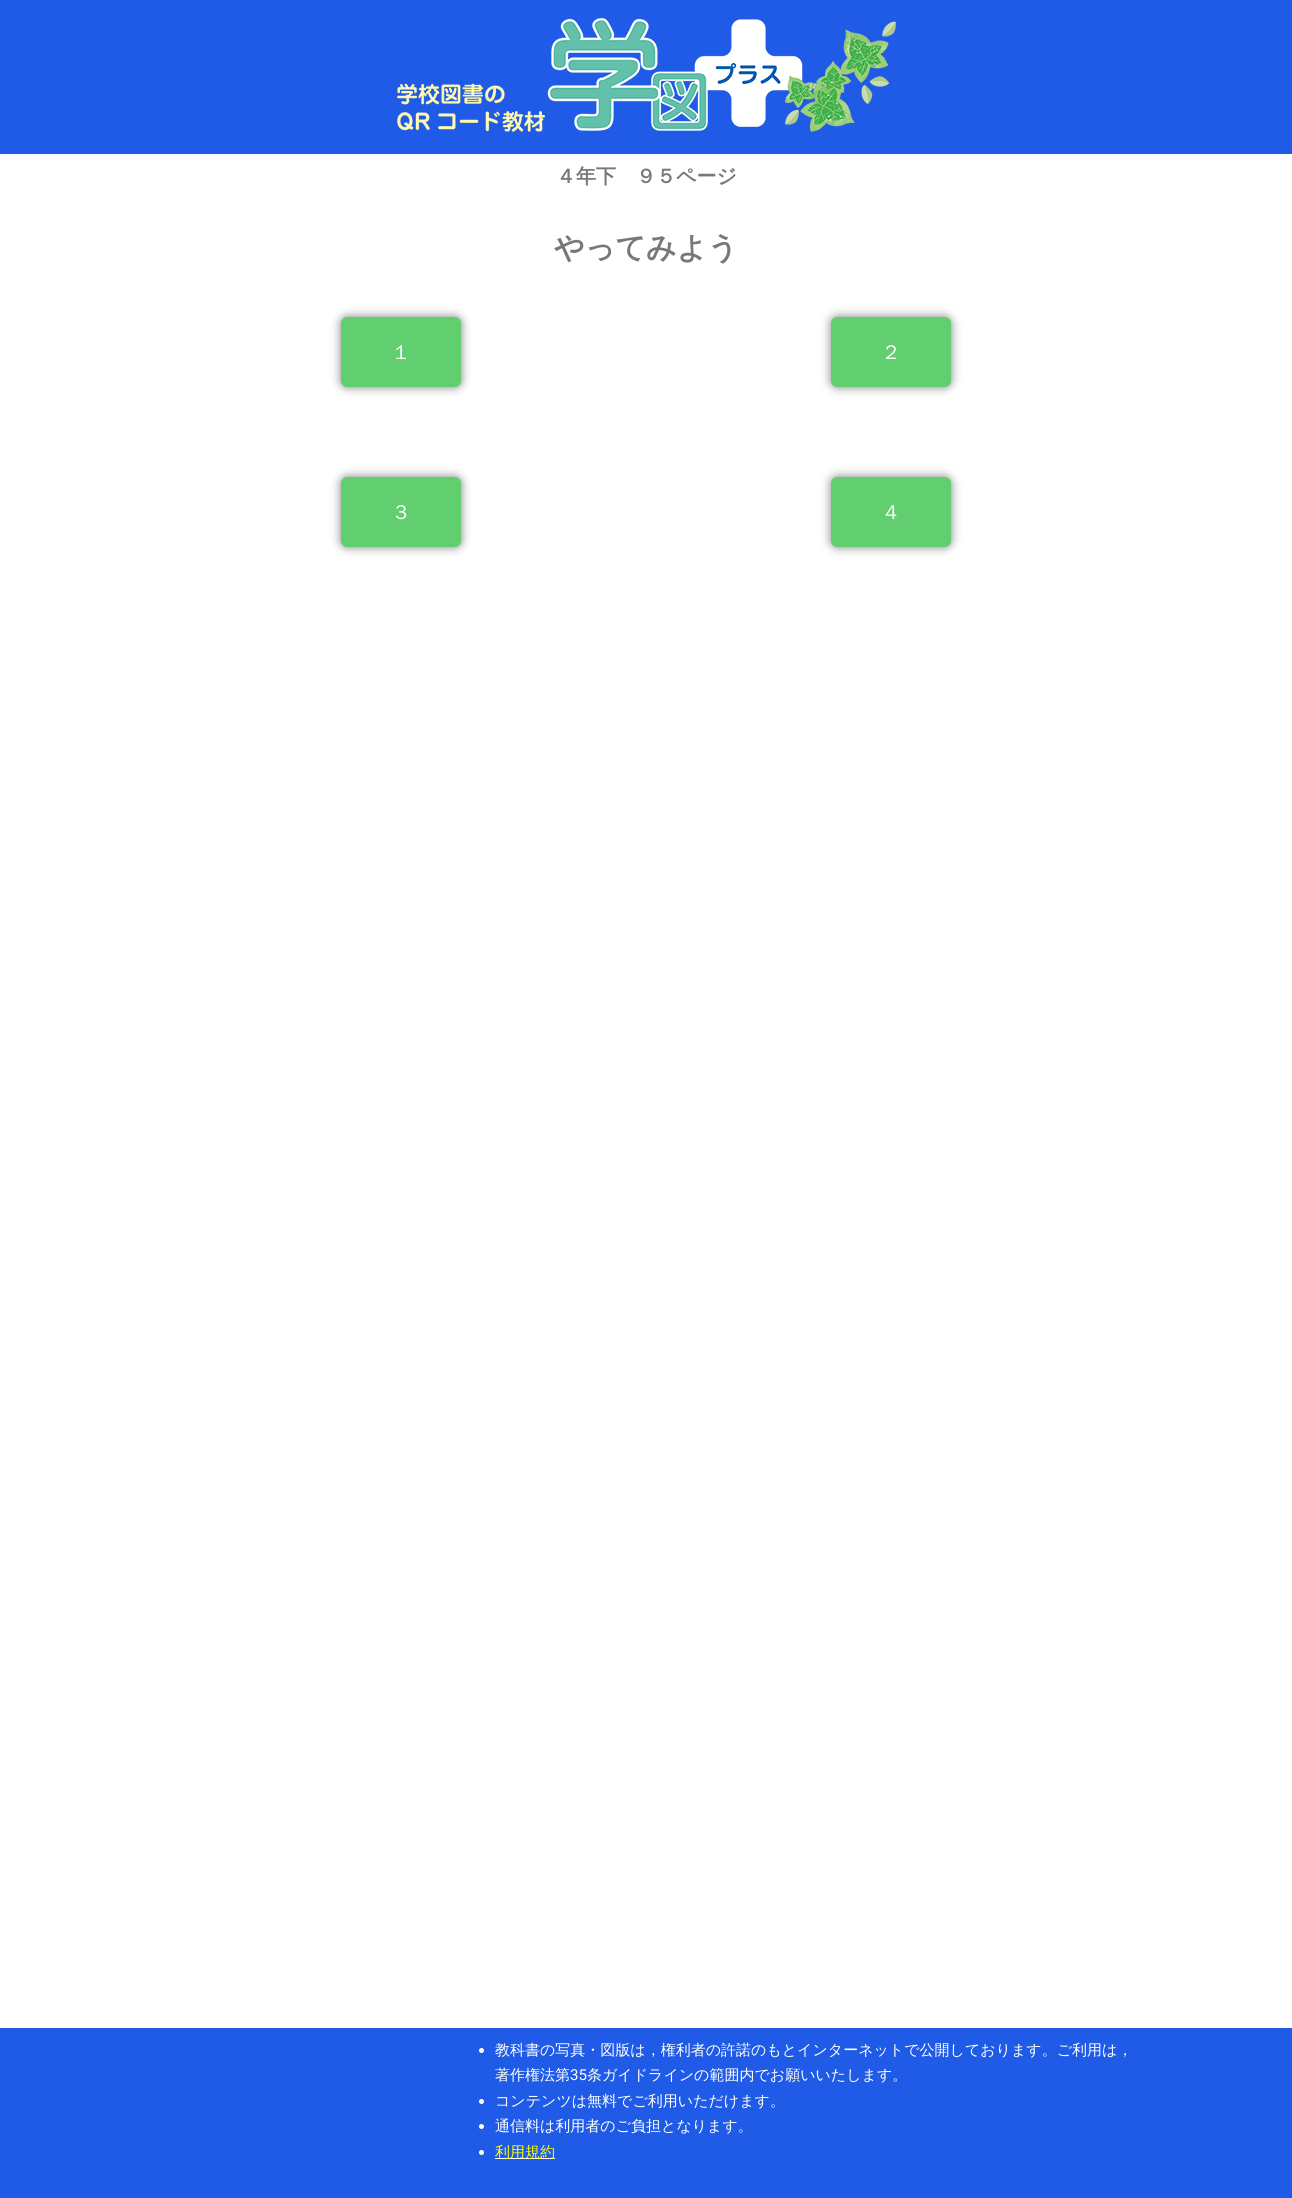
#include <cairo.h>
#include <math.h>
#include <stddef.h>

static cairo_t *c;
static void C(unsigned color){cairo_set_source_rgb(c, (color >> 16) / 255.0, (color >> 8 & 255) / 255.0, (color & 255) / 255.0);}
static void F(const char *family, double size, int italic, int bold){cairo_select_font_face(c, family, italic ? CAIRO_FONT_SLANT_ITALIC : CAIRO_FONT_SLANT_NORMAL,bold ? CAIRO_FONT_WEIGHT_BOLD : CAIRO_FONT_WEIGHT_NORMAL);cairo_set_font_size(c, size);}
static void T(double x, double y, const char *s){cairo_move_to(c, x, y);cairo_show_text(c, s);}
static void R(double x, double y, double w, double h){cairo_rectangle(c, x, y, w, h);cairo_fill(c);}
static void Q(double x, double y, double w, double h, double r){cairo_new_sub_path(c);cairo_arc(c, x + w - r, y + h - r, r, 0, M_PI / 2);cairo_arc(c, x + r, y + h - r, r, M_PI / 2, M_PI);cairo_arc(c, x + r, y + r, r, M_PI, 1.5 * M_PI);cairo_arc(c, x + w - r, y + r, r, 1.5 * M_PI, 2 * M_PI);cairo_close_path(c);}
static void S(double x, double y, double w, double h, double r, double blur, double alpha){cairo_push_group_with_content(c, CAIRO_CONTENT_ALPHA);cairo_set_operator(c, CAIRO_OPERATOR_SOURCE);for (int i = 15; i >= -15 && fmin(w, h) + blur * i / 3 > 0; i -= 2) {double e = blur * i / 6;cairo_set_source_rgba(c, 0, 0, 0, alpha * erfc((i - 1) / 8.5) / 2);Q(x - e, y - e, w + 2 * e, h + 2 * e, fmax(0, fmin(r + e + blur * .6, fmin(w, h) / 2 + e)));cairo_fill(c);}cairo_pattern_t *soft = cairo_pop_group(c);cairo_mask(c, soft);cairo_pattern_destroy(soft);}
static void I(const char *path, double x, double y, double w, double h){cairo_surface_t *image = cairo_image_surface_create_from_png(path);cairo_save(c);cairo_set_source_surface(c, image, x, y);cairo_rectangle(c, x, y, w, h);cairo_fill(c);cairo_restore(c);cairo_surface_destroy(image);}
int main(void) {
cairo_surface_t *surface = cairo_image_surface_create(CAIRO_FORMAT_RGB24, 1292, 2198);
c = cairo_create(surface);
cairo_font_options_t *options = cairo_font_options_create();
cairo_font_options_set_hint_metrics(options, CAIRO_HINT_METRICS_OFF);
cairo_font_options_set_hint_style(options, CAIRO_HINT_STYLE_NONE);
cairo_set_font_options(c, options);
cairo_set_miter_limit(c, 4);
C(0xffffff);
cairo_paint(c);
C(0x1f5be7);
R(0,0,1292,154);
I("1.png",397,18,499,114);
F("WenQuanYi Zen Hei",20,0,1);
C(0x787878);
T(556,183,"４年下　９５ページ");
F("WenQuanYi Zen Hei",30,0,1);
T(554,258,"やってみよう");
C(0x000000);
S(341,317,120,70,6,5,.5);
C(0x61ce70);
Q(341,317,120,70,6);
cairo_fill(c);
F("WenQuanYi Zen Hei Medium",20,0,0);
C(0xffffff);
T(391,359,"１");
C(0x000000);
S(831,317,120,70,6,5,.5);
C(0x61ce70);
Q(831,317,120,70,6);
cairo_fill(c);
C(0xffffff);
T(881,359,"２");
C(0x000000);
S(341,477,120,70,6,5,.5);
C(0x61ce70);
Q(341,477,120,70,6);
cairo_fill(c);
C(0xffffff);
T(391,519,"３");
C(0x000000);
S(831,477,120,70,6,5,.5);
C(0x61ce70);
Q(831,477,120,70,6);
cairo_fill(c);
C(0xffffff);
T(881,519,"４");
C(0x1f5be7);
R(0,2028,1292,170);
C(0xffffff);
cairo_new_path(c);
cairo_arc(c,481.5,2050.5,2.5,0,2 * M_PI);
cairo_fill(c);
F("WenQuanYi Zen Hei Medium",15,0,0);
T(495,2055,"教科書の写真・図版は，権利者の許諾のもとインターネットで公開しております。ご利用は，");
T(495,2080,"著作権法第");
F("Roboto",15,0,0);
T(570,2080,"35");
F("WenQuanYi Zen Hei Medium",15,0,0);
T(587,2080,"条ガイドラインの範囲内でお願いいたします。");
cairo_new_path(c);
cairo_arc(c,481.5,2101.5,2.5,0,2 * M_PI);
cairo_fill(c);
T(495,2106,"コンテンツは無料でご利用いただけます。");
cairo_new_path(c);
cairo_arc(c,481.5,2126.5,2.5,0,2 * M_PI);
cairo_fill(c);
T(495,2131,"通信料は利用者のご負担となります。");
cairo_new_path(c);
cairo_arc(c,481.5,2152.5,2.5,0,2 * M_PI);
cairo_fill(c);
R(495,2158,60,1);
C(0xffff00);
T(495,2157,"利用規約");
cairo_surface_write_to_png(surface, "o.png");
cairo_font_options_destroy(options);
cairo_destroy(c);
cairo_surface_destroy(surface);
return 0;
}
